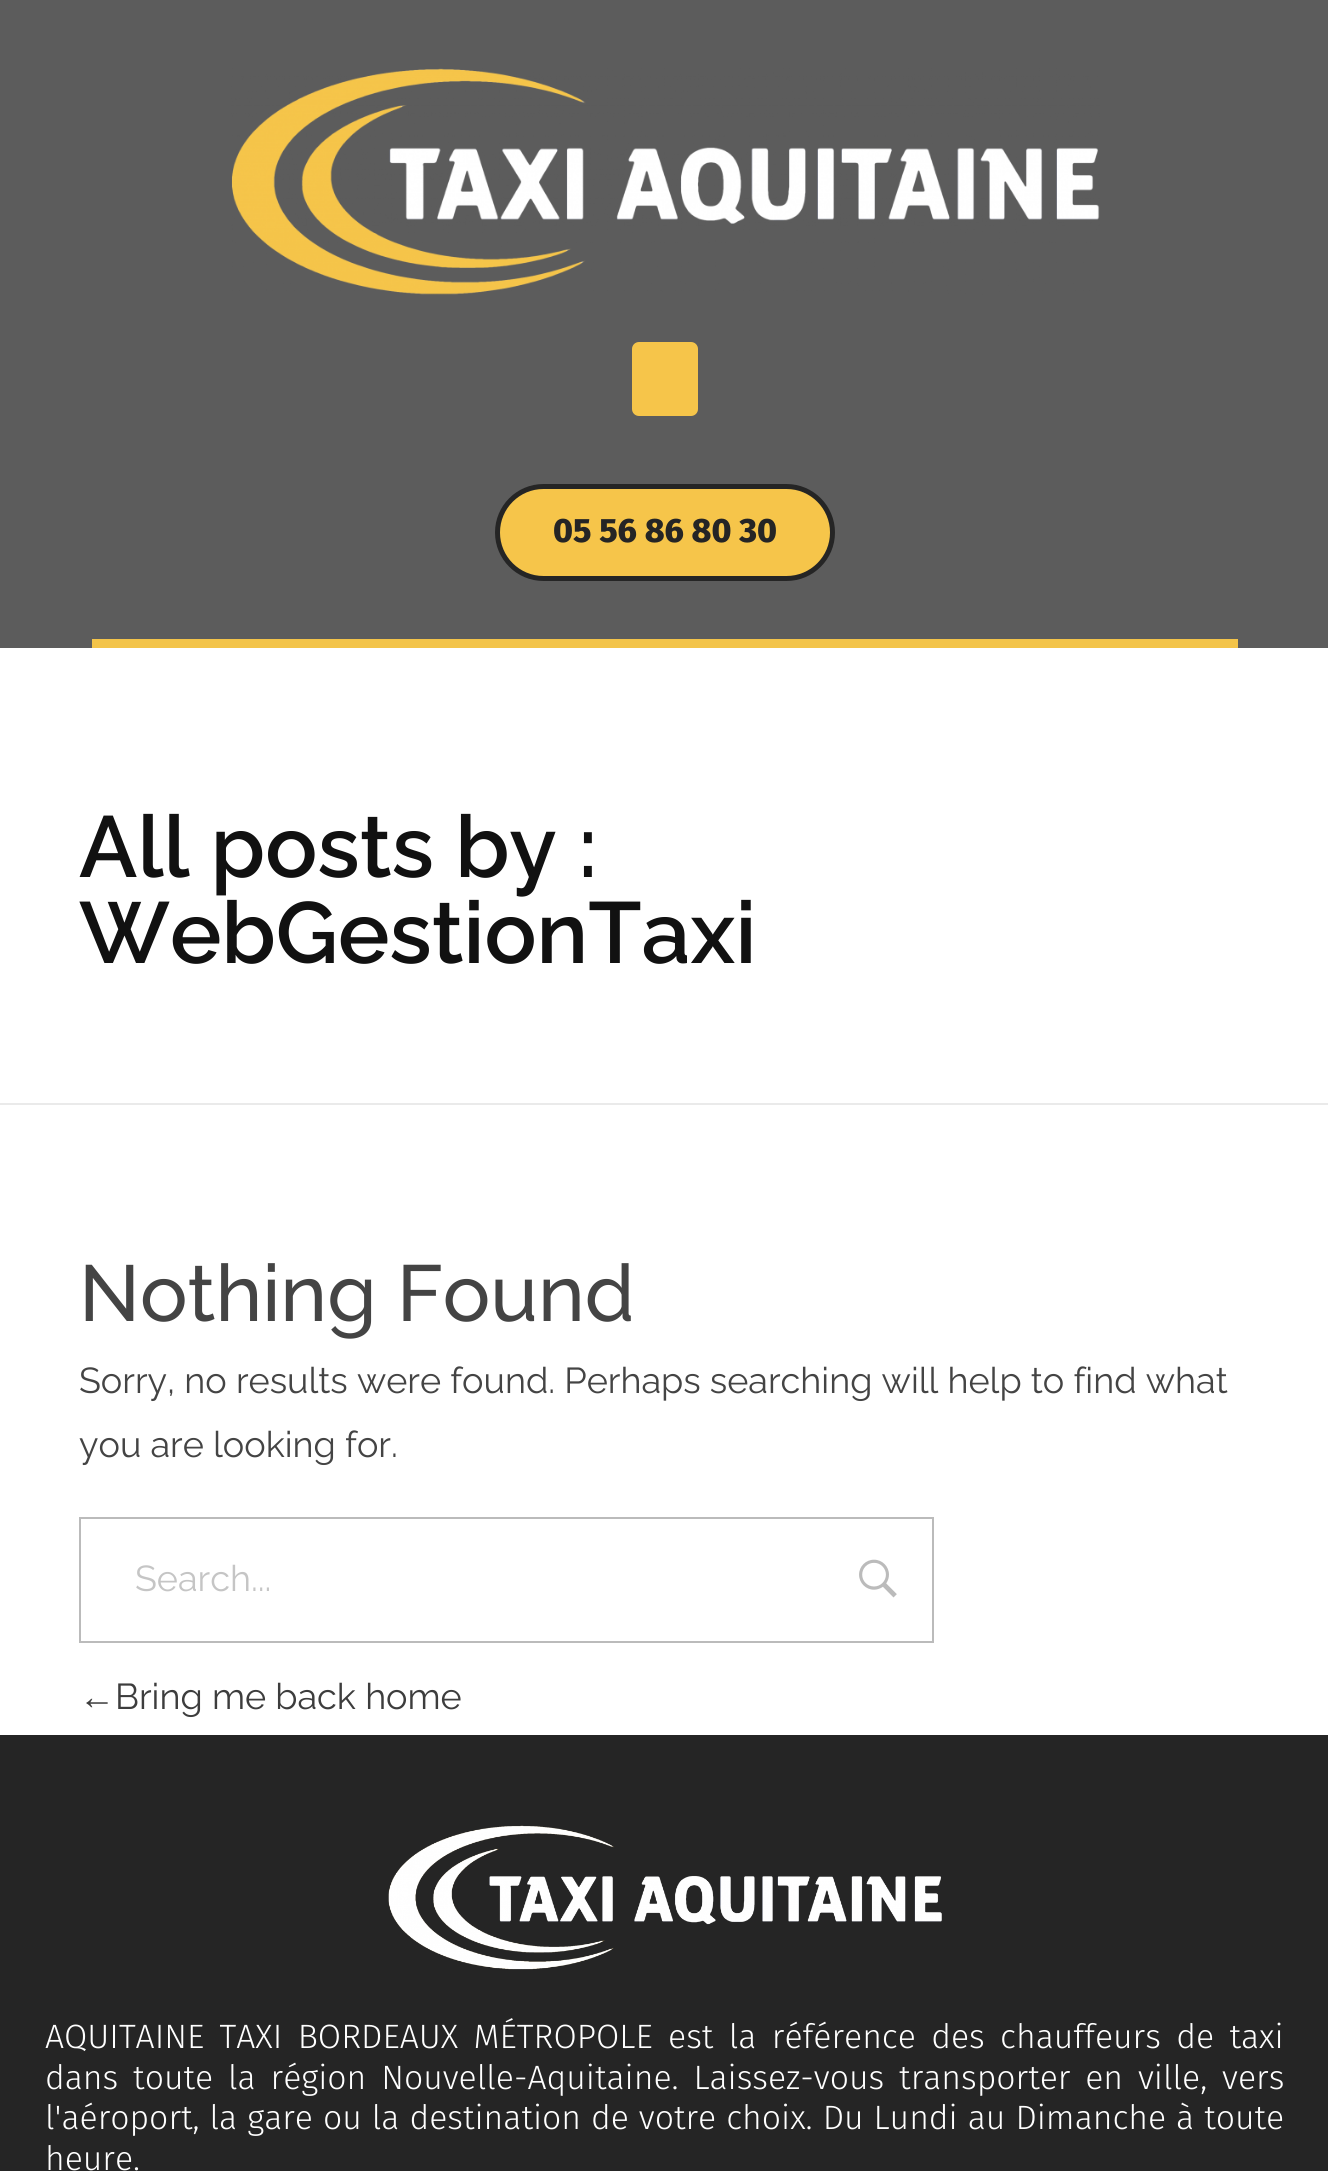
#include <cairo.h>
#include <math.h>
#include <stddef.h>

static cairo_t *c;
static void C(unsigned color){cairo_set_source_rgb(c, (color >> 16) / 255.0, (color >> 8 & 255) / 255.0, (color & 255) / 255.0);}
static void F(const char *family, double size, int italic, int bold){cairo_select_font_face(c, family, italic ? CAIRO_FONT_SLANT_ITALIC : CAIRO_FONT_SLANT_NORMAL,bold ? CAIRO_FONT_WEIGHT_BOLD : CAIRO_FONT_WEIGHT_NORMAL);cairo_set_font_size(c, size);}
static void T(double x, double y, const char *s){cairo_move_to(c, x, y);cairo_show_text(c, s);}
static void L(double x, double y, const char *s, double letter, double word){cairo_move_to(c, x, y);while (*s) {char ch[5] = {0};int n = 0;do ch[n++] = *s++; while ((*s & 0xC0) == 0x80);cairo_show_text(c, ch);cairo_rel_move_to(c, letter + word * (*ch == ' '), 0);}}
static void R(double x, double y, double w, double h){cairo_rectangle(c, x, y, w, h);cairo_fill(c);}
static void Q(double x, double y, double w, double h, double r){cairo_new_sub_path(c);cairo_arc(c, x + w - r, y + h - r, r, 0, M_PI / 2);cairo_arc(c, x + r, y + h - r, r, M_PI / 2, M_PI);cairo_arc(c, x + r, y + r, r, M_PI, 1.5 * M_PI);cairo_arc(c, x + w - r, y + r, r, 1.5 * M_PI, 2 * M_PI);cairo_close_path(c);}
static void I(const char *path, double x, double y, double w, double h){cairo_surface_t *image = cairo_image_surface_create_from_png(path);cairo_save(c);cairo_set_source_surface(c, image, x, y);cairo_rectangle(c, x, y, w, h);cairo_fill(c);cairo_restore(c);cairo_surface_destroy(image);}
int main(void) {
cairo_surface_t *surface = cairo_image_surface_create(CAIRO_FORMAT_RGB24, 1328, 2171);
c = cairo_create(surface);
cairo_font_options_t *options = cairo_font_options_create();
cairo_font_options_set_hint_metrics(options, CAIRO_HINT_METRICS_OFF);
cairo_font_options_set_hint_style(options, CAIRO_HINT_STYLE_NONE);
cairo_set_font_options(c, options);
cairo_set_miter_limit(c, 4);
C(0xffffff);
cairo_paint(c);
C(0x5c5c5c);
R(0,0,1328,648);
I("1.png",231,68,869,227);
C(0xf6c54a);
Q(632,342,66,74,7);
cairo_fill(c);
Q(497.5,486.5,335,92,46);
cairo_fill_preserve(c);
C(0x252525);
cairo_set_line_width(c,5);
cairo_stroke(c);
F("Fira Sans ExtraBold",33.75,0,0);
T(553,542,"05 56 86 80 30");
C(0xf3c44a);
R(92,639,1146,9);
C(0xeaeaea);
R(0,1103,1328,2);
F("Raleway SemiBold",86.5,0,0);
C(0x111111);
T(79,877,"All posts by :");
T(79,963,"WebGestionTaxi");
F("Raleway Medium",79.25,0,0);
C(0x444444);
T(79,1321,"Nothing Found");
F("Raleway",36,0,0);
T(79,1393,"Sorry, no results were found. Perhaps searching will help to find what");
T(79,1457,"you are looking for.");
cairo_rectangle(c,80,1518,853,124);
C(0xbbbbbb);
cairo_set_line_width(c,2);
cairo_stroke(c);
C(0xc5c5c5);
T(135,1591,"Search...");
I("2.png",859,1559,38,39);
F("Liberation Sans",36,0,0);
C(0x3d3d3d);
T(79,1709,"←");
F("Raleway",36,0,0);
T(115,1709,"Bring me back home");
C(0x252525);
R(0,1735,1328,436);
I("3.png",388,1825,554,145);
F("Fira Sans Light",33.75,0,0);
C(0xffffff);
L(45,2048,"AQUITAINE TAXI BORDEAUX MÉTROPOLE est la référence des chauffeurs de taxi",0,6);
L(45,2089,"dans toute la région Nouvelle-Aquitaine. Laissez-vous transporter en ville, vers",0,5.5);
L(45,2129,"l'aéroport, la gare ou la destination de votre choix. Du Lundi au Dimanche à toute",0,.6);
T(45,2170,"heure.");
cairo_surface_write_to_png(surface, "o.png");
cairo_font_options_destroy(options);
cairo_destroy(c);
cairo_surface_destroy(surface);
return 0;
}
